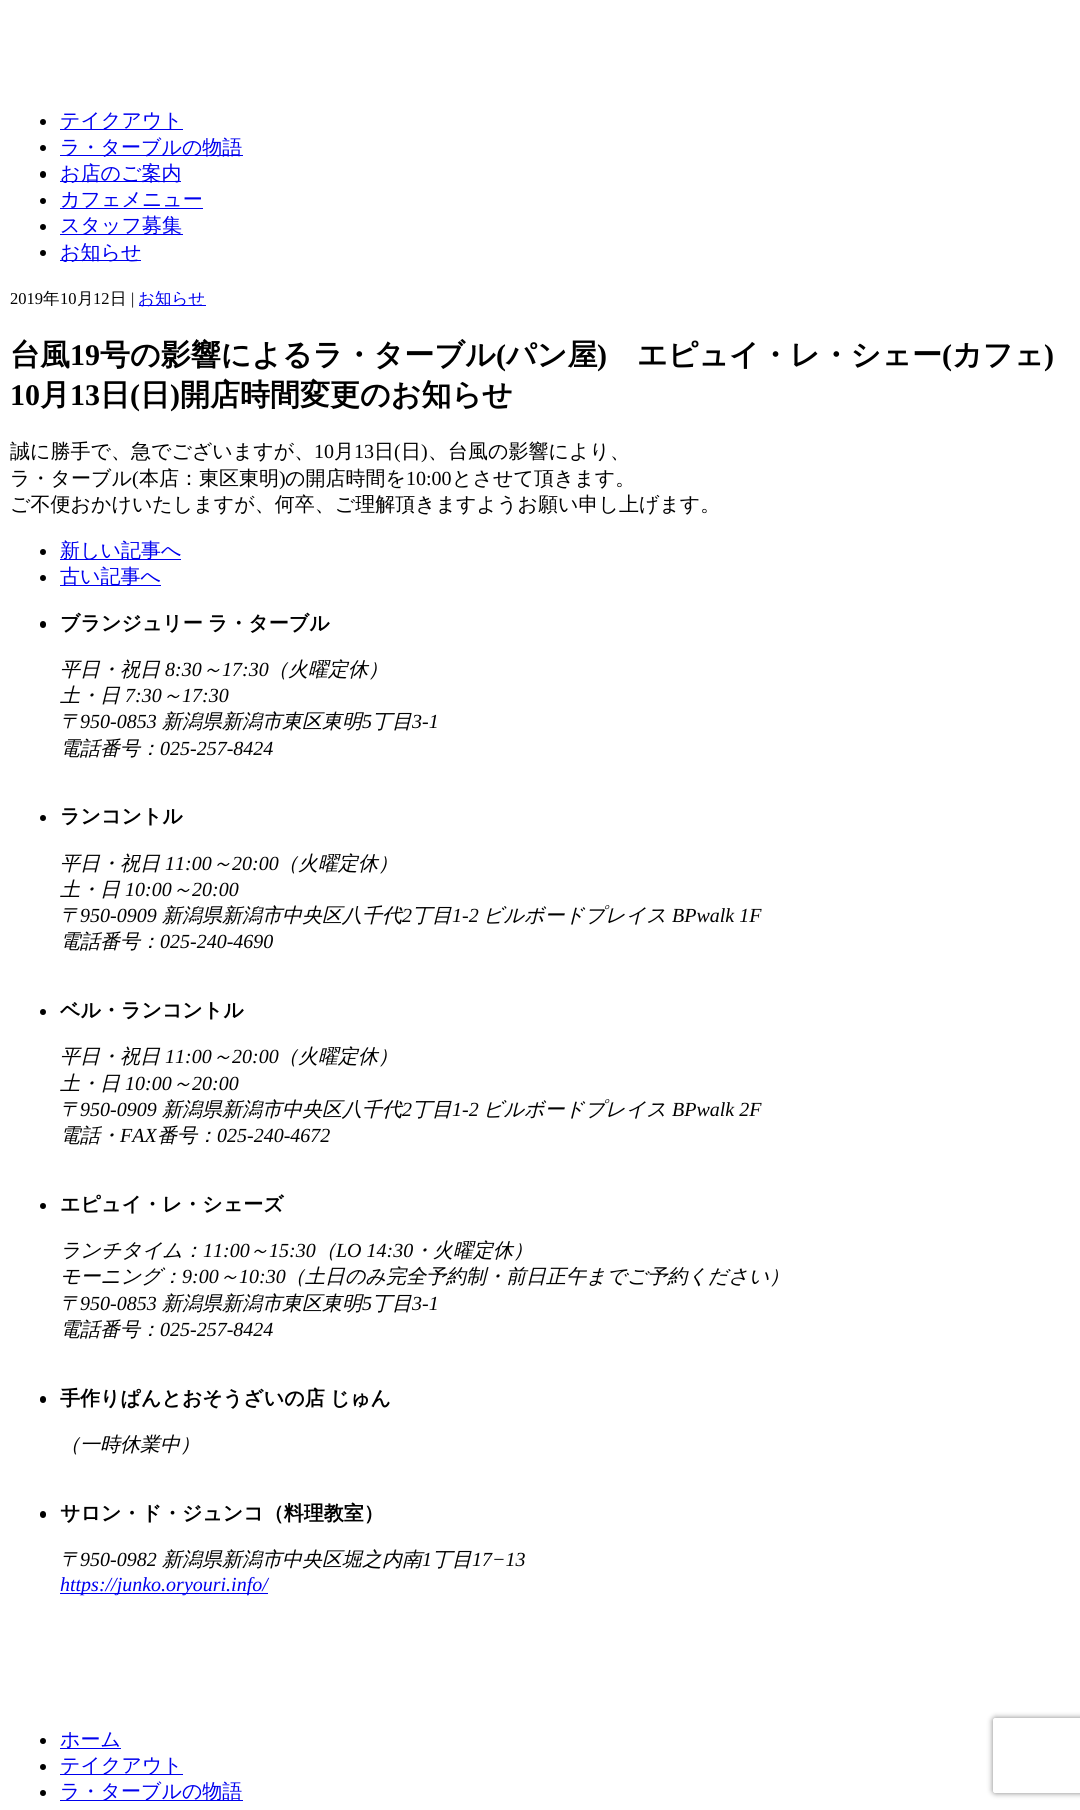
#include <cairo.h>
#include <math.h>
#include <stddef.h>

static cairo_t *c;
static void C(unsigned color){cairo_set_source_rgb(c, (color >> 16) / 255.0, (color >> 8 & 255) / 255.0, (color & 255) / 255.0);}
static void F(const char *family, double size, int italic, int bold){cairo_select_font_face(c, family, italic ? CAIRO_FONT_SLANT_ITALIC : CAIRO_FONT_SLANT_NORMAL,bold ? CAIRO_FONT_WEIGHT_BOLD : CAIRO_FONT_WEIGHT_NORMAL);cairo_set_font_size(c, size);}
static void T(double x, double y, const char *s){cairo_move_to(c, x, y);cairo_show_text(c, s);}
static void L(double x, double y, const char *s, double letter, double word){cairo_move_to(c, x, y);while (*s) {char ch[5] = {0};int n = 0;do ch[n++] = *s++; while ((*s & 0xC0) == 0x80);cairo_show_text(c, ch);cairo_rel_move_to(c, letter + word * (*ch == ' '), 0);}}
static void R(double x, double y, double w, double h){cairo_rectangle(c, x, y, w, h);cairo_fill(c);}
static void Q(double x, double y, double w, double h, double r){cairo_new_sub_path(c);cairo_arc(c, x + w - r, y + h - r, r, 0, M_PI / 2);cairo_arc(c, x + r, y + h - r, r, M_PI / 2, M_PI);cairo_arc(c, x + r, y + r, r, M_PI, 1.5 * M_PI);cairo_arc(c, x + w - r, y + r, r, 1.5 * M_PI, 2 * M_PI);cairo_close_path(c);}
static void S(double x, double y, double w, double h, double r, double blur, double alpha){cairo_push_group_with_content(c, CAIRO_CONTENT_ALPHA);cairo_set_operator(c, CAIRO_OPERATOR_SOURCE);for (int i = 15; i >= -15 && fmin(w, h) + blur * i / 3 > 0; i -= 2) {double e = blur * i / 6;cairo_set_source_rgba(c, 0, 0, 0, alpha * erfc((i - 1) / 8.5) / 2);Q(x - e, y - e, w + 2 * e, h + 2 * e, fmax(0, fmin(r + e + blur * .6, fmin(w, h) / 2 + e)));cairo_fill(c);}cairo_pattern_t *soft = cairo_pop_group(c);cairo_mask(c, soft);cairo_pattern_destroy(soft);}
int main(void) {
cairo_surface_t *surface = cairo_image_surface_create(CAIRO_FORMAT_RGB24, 1080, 1810);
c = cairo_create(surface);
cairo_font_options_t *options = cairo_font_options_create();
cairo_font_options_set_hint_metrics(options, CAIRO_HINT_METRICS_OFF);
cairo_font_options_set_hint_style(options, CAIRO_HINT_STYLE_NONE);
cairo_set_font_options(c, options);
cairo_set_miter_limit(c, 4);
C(0xffffff);
cairo_paint(c);
C(0x000000);
cairo_arc(c,43,122,3,0,2 * M_PI);
cairo_fill(c);
C(0x0000ee);
R(60,129,123,1);
F("WenQuanYi Zen Hei Medium",20,0,0);
T(60,127,"テイクアウト");
C(0x000000);
cairo_new_path(c);
cairo_arc(c,43,148,3,0,2 * M_PI);
cairo_fill(c);
C(0x0000ee);
R(60,155,183,1);
T(60,154,"ラ・ターブルの物語");
C(0x000000);
Q(40,171,6,7,3);
cairo_fill(c);
C(0x0000ee);
R(60,181,121,1);
T(60,180,"お店のご案内");
C(0x000000);
cairo_new_path(c);
cairo_arc(c,43,201,3,0,2 * M_PI);
cairo_fill(c);
C(0x0000ee);
T(60,206,"カフェメニュー");
R(60,208,143,1);
C(0x000000);
cairo_new_path(c);
cairo_arc(c,43,227,3,0,2 * M_PI);
cairo_fill(c);
C(0x0000ee);
R(60,234,123,1);
T(60,232,"スタッフ募集");
C(0x000000);
cairo_new_path(c);
cairo_arc(c,43,253,3,0,2 * M_PI);
cairo_fill(c);
C(0x0000ee);
R(60,260,81,1);
T(60,259,"お知らせ");
F("Liberation Serif",16.5,0,0);
C(0x000000);
T(10,304,"2019");
F("WenQuanYi Zen Hei Medium",16.5,0,0);
T(43,304,"年");
F("Liberation Serif",16.5,0,0);
T(60,304,"10");
F("WenQuanYi Zen Hei Medium",16.5,0,0);
T(77,304,"月");
F("Liberation Serif",16.5,0,0);
T(93,304,"12");
F("WenQuanYi Zen Hei Medium",16.5,0,0);
T(110,304,"日");
F("Liberation Serif",16.5,0,0);
T(131,304,"|");
C(0x0000ee);
R(139,305,67,1);
F("WenQuanYi Zen Hei Medium",16.5,0,0);
T(138,304,"お知らせ");
F("WenQuanYi Zen Hei",30,0,1);
C(0x000000);
T(10,365,"台風");
F("Liberation Serif",30,0,1);
T(70,365,"19");
F("WenQuanYi Zen Hei",30,0,1);
T(100,365,"号の影響によるラ・ターブル");
F("Liberation Serif",30,0,1);
T(496,365,"(");
F("WenQuanYi Zen Hei",30,0,1);
T(506,365,"パン屋");
F("Liberation Serif",30,0,1);
T(597,365,")");
F("WenQuanYi Zen Hei",30,0,1);
T(637,365,"エピュイ・レ・シェー");
F("Liberation Serif",30,0,1);
T(942,365,"(");
F("WenQuanYi Zen Hei",30,0,1);
T(952,365,"カフェ");
F("Liberation Serif",30,0,1);
T(1044,365,")");
T(10,405,"10");
F("WenQuanYi Zen Hei",30,0,1);
T(40,405,"月");
F("Liberation Serif",30,0,1);
T(70,405,"13");
F("WenQuanYi Zen Hei",30,0,1);
T(100,405,"日");
F("Liberation Serif",30,0,1);
T(130,405,"(");
F("WenQuanYi Zen Hei",30,0,1);
T(140,405,"日");
F("Liberation Serif",30,0,1);
T(170,405,")");
F("WenQuanYi Zen Hei",30,0,1);
T(180,405,"開店時間変更のお知らせ");
F("WenQuanYi Zen Hei Medium",20,0,0);
T(10,458,"誠に勝手で、急でございますが、");
F("Liberation Serif",20,0,0);
T(314,458,"10");
F("WenQuanYi Zen Hei Medium",20,0,0);
T(334,458,"月");
F("Liberation Serif",20,0,0);
T(354,458,"13");
F("WenQuanYi Zen Hei Medium",20,0,0);
T(374,458,"日");
F("Liberation Serif",20,0,0);
T(394,458,"(");
F("WenQuanYi Zen Hei Medium",20,0,0);
T(401,458,"日");
F("Liberation Serif",20,0,0);
T(421,458,")");
F("WenQuanYi Zen Hei Medium",20,0,0);
T(428,458,"、台風の影響により、");
T(10,485,"ラ・ターブル");
F("Liberation Serif",20,0,0);
T(132,485,"(");
F("WenQuanYi Zen Hei Medium",20,0,0);
T(139,485,"本店：東区東明");
F("Liberation Serif",20,0,0);
T(279,485,")");
F("WenQuanYi Zen Hei Medium",20,0,0);
T(285,485,"の開店時間を");
F("Liberation Serif",20,0,0);
T(406,485,"10:00");
F("WenQuanYi Zen Hei Medium",20,0,0);
T(452,485,"とさせて頂きます。");
T(10,511,"ご不便おかけいたしますが、何卒、ご理解頂きますようお願い申し上げます。");
cairo_new_path(c);
cairo_arc(c,43,552,3,0,2 * M_PI);
cairo_fill(c);
C(0x0000ee);
R(60,559,121,1);
T(60,557,"新しい記事へ");
C(0x000000);
cairo_new_path(c);
cairo_arc(c,43,578,3,0,2 * M_PI);
cairo_fill(c);
C(0x0000ee);
R(60,585,101,1);
T(60,583,"古い記事へ");
C(0x000000);
Q(40,621,6,7,3);
cairo_fill(c);
F("WenQuanYi Zen Hei",20,0,1);
L(60,630,"ブランジュリー ラ・ターブル",0,-1);
F("WenQuanYi Zen Hei Medium",20,1,0);
T(60,676,"平日・祝日");
F("Liberation Serif",20,1,0);
T(165,676,"8:30");
F("WenQuanYi Zen Hei Medium",20,1,0);
T(202,676,"～");
F("Liberation Serif",20,1,0);
T(222,676,"17:30");
F("WenQuanYi Zen Hei Medium",20,1,0);
T(268,676,"（火曜定休）");
T(60,702,"土・日");
F("Liberation Serif",20,1,0);
T(125,702,"7:30");
F("WenQuanYi Zen Hei Medium",20,1,0);
T(162,702,"～");
F("Liberation Serif",20,1,0);
T(182,702,"17:30");
F("WenQuanYi Zen Hei Medium",20,1,0);
T(60,728,"〒");
F("Liberation Serif",20,1,0);
T(80,728,"950-0853");
F("WenQuanYi Zen Hei Medium",20,1,0);
T(162,728,"新潟県新潟市東区東明");
F("Liberation Serif",20,1,0);
T(362,728,"5");
F("WenQuanYi Zen Hei Medium",20,1,0);
T(372,728,"丁目");
F("Liberation Serif",20,1,0);
T(412,728,"3-1");
F("WenQuanYi Zen Hei Medium",20,1,0);
T(60,755,"電話番号：");
F("Liberation Serif",20,1,0);
T(160,755,"025-257-8424");
cairo_new_path(c);
cairo_arc(c,43,818,3,0,2 * M_PI);
cairo_fill(c);
F("WenQuanYi Zen Hei",20,0,1);
T(60,823,"ランコントル");
F("WenQuanYi Zen Hei Medium",20,1,0);
T(60,870,"平日・祝日");
F("Liberation Serif",20,1,0);
T(165,870,"11:00");
F("WenQuanYi Zen Hei Medium",20,1,0);
T(212,870,"～");
F("Liberation Serif",20,1,0);
T(232,870,"20:00");
F("WenQuanYi Zen Hei Medium",20,1,0);
T(278,870,"（火曜定休）");
T(60,896,"土・日");
F("Liberation Serif",20,1,0);
T(125,896,"10:00");
F("WenQuanYi Zen Hei Medium",20,1,0);
T(172,896,"～");
F("Liberation Serif",20,1,0);
T(192,896,"20:00");
F("WenQuanYi Zen Hei Medium",20,1,0);
T(60,922,"〒");
F("Liberation Serif",20,1,0);
T(80,922,"950-0909");
F("WenQuanYi Zen Hei Medium",20,1,0);
T(162,922,"新潟県新潟市中央区八千代");
F("Liberation Serif",20,1,0);
T(402,922,"2");
F("WenQuanYi Zen Hei Medium",20,1,0);
T(412,922,"丁目");
F("Liberation Serif",20,1,0);
T(452,922,"1-2");
F("WenQuanYi Zen Hei Medium",20,1,0);
T(483,922,"ビルボードプレイス");
F("Liberation Serif",20,1,0);
T(672,922,"BPwalk 1F");
F("WenQuanYi Zen Hei Medium",20,1,0);
T(60,948,"電話番号：");
F("Liberation Serif",20,1,0);
T(160,948,"025-240-4690");
cairo_new_path(c);
cairo_arc(c,43,1012,3,0,2 * M_PI);
cairo_fill(c);
F("WenQuanYi Zen Hei",20,0,1);
T(60,1017,"ベル・ランコントル");
F("WenQuanYi Zen Hei Medium",20,1,0);
T(60,1063,"平日・祝日");
F("Liberation Serif",20,1,0);
T(165,1063,"11:00");
F("WenQuanYi Zen Hei Medium",20,1,0);
T(212,1063,"～");
F("Liberation Serif",20,1,0);
T(232,1063,"20:00");
F("WenQuanYi Zen Hei Medium",20,1,0);
T(278,1063,"（火曜定休）");
T(60,1090,"土・日");
F("Liberation Serif",20,1,0);
T(125,1090,"10:00");
F("WenQuanYi Zen Hei Medium",20,1,0);
T(172,1090,"～");
F("Liberation Serif",20,1,0);
T(192,1090,"20:00");
F("WenQuanYi Zen Hei Medium",20,1,0);
T(60,1116,"〒");
F("Liberation Serif",20,1,0);
T(80,1116,"950-0909");
F("WenQuanYi Zen Hei Medium",20,1,0);
T(162,1116,"新潟県新潟市中央区八千代");
F("Liberation Serif",20,1,0);
T(402,1116,"2");
F("WenQuanYi Zen Hei Medium",20,1,0);
T(412,1116,"丁目");
F("Liberation Serif",20,1,0);
T(452,1116,"1-2");
F("WenQuanYi Zen Hei Medium",20,1,0);
T(483,1116,"ビルボードプレイス");
F("Liberation Serif",20,1,0);
T(672,1116,"BPwalk 2F");
F("WenQuanYi Zen Hei Medium",20,1,0);
T(60,1142,"電話・");
F("Liberation Serif",20,1,0);
T(120,1142,"FAX");
F("WenQuanYi Zen Hei Medium",20,1,0);
T(157,1142,"番号：");
F("Liberation Serif",20,1,0);
T(217,1142,"025-240-4672");
cairo_new_path(c);
cairo_arc(c,43,1206,3,0,2 * M_PI);
cairo_fill(c);
F("WenQuanYi Zen Hei",20,0,1);
T(60,1211,"エピュイ・レ・シェーズ");
F("WenQuanYi Zen Hei Medium",20,1,0);
T(60,1257,"ランチタイム：");
F("Liberation Serif",20,1,0);
T(203,1257,"11:00");
F("WenQuanYi Zen Hei Medium",20,1,0);
T(249,1257,"～");
F("Liberation Serif",20,1,0);
T(269,1257,"15:30");
F("WenQuanYi Zen Hei Medium",20,1,0);
T(316,1257,"（");
F("Liberation Serif",20,1,0);
T(336,1257,"LO 14:30");
F("WenQuanYi Zen Hei Medium",20,1,0);
T(413,1257,"・火曜定休）");
T(60,1283,"モーニング：");
F("Liberation Serif",20,1,0);
T(182,1283,"9:00");
F("WenQuanYi Zen Hei Medium",20,1,0);
T(219,1283,"～");
F("Liberation Serif",20,1,0);
T(239,1283,"10:30");
F("WenQuanYi Zen Hei Medium",20,1,0);
T(285,1283,"（土日のみ完全予約制・前日正午までご予約ください）");
T(60,1310,"〒");
F("Liberation Serif",20,1,0);
T(80,1310,"950-0853");
F("WenQuanYi Zen Hei Medium",20,1,0);
T(162,1310,"新潟県新潟市東区東明");
F("Liberation Serif",20,1,0);
T(362,1310,"5");
F("WenQuanYi Zen Hei Medium",20,1,0);
T(372,1310,"丁目");
F("Liberation Serif",20,1,0);
T(412,1310,"3-1");
F("WenQuanYi Zen Hei Medium",20,1,0);
T(60,1336,"電話番号：");
F("Liberation Serif",20,1,0);
T(160,1336,"025-257-8424");
Q(40,1396,6,7,3);
cairo_fill(c);
F("WenQuanYi Zen Hei",20,0,1);
L(60,1405,"手作りぱんとおそうざいの店 じゅん",0,-1);
F("WenQuanYi Zen Hei Medium",20,1,0);
T(60,1451,"（一時休業中）");
Q(40,1511,6,7,3);
cairo_fill(c);
F("WenQuanYi Zen Hei",20,0,1);
T(60,1520,"サロン・ド・ジュンコ（料理教室）");
F("WenQuanYi Zen Hei Medium",20,1,0);
T(60,1566,"〒");
F("Liberation Serif",20,1,0);
T(80,1566,"950-0982");
F("WenQuanYi Zen Hei Medium",20,1,0);
T(162,1566,"新潟県新潟市中央区堀之内南");
F("Liberation Serif",20,1,0);
T(422,1566,"1");
F("WenQuanYi Zen Hei Medium",20,1,0);
T(432,1566,"丁目");
F("Liberation Serif",20,1,0);
T(472,1566,"17−13");
C(0x0000ee);
R(60,1593,208,1);
T(60,1591,"https://junko.oryouri.info/");
C(0x000000);
cairo_new_path(c);
cairo_arc(c,43,1741,3,0,2 * M_PI);
cairo_fill(c);
C(0x0000ee);
R(60,1748,61,1);
F("WenQuanYi Zen Hei Medium",20,0,0);
T(60,1746,"ホーム");
C(0x000000);
cairo_new_path(c);
cairo_arc(c,43,1767,3,0,2 * M_PI);
cairo_fill(c);
C(0x0000ee);
R(60,1774,123,1);
T(60,1772,"テイクアウト");
C(0x000000);
cairo_new_path(c);
cairo_arc(c,43,1793,3,0,2 * M_PI);
cairo_fill(c);
C(0x0000ee);
R(60,1800,183,1);
T(60,1798,"ラ・ターブルの物語");
cairo_save(c);
cairo_set_fill_rule(c,CAIRO_FILL_RULE_EVEN_ODD);
cairo_new_path(c);
cairo_move_to(c,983,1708);
cairo_line_to(c,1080,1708);
cairo_line_to(c,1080,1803);
cairo_line_to(c,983,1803);
cairo_close_path(c);
cairo_move_to(c,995.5,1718);
cairo_line_to(c,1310.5,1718);
cairo_curve_to(c,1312,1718,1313,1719,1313,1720.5);
cairo_line_to(c,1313,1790.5);
cairo_curve_to(c,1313,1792,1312,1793,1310.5,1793);
cairo_line_to(c,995.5,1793);
cairo_curve_to(c,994,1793,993,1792,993,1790.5);
cairo_line_to(c,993,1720.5);
cairo_curve_to(c,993,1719,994,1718,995.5,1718);
cairo_close_path(c);
cairo_clip(c);
C(0x808080);
S(993,1718,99,75,2.5,3,1);
cairo_restore(c);
cairo_surface_write_to_png(surface, "o.png");
cairo_font_options_destroy(options);
cairo_destroy(c);
cairo_surface_destroy(surface);
return 0;
}
